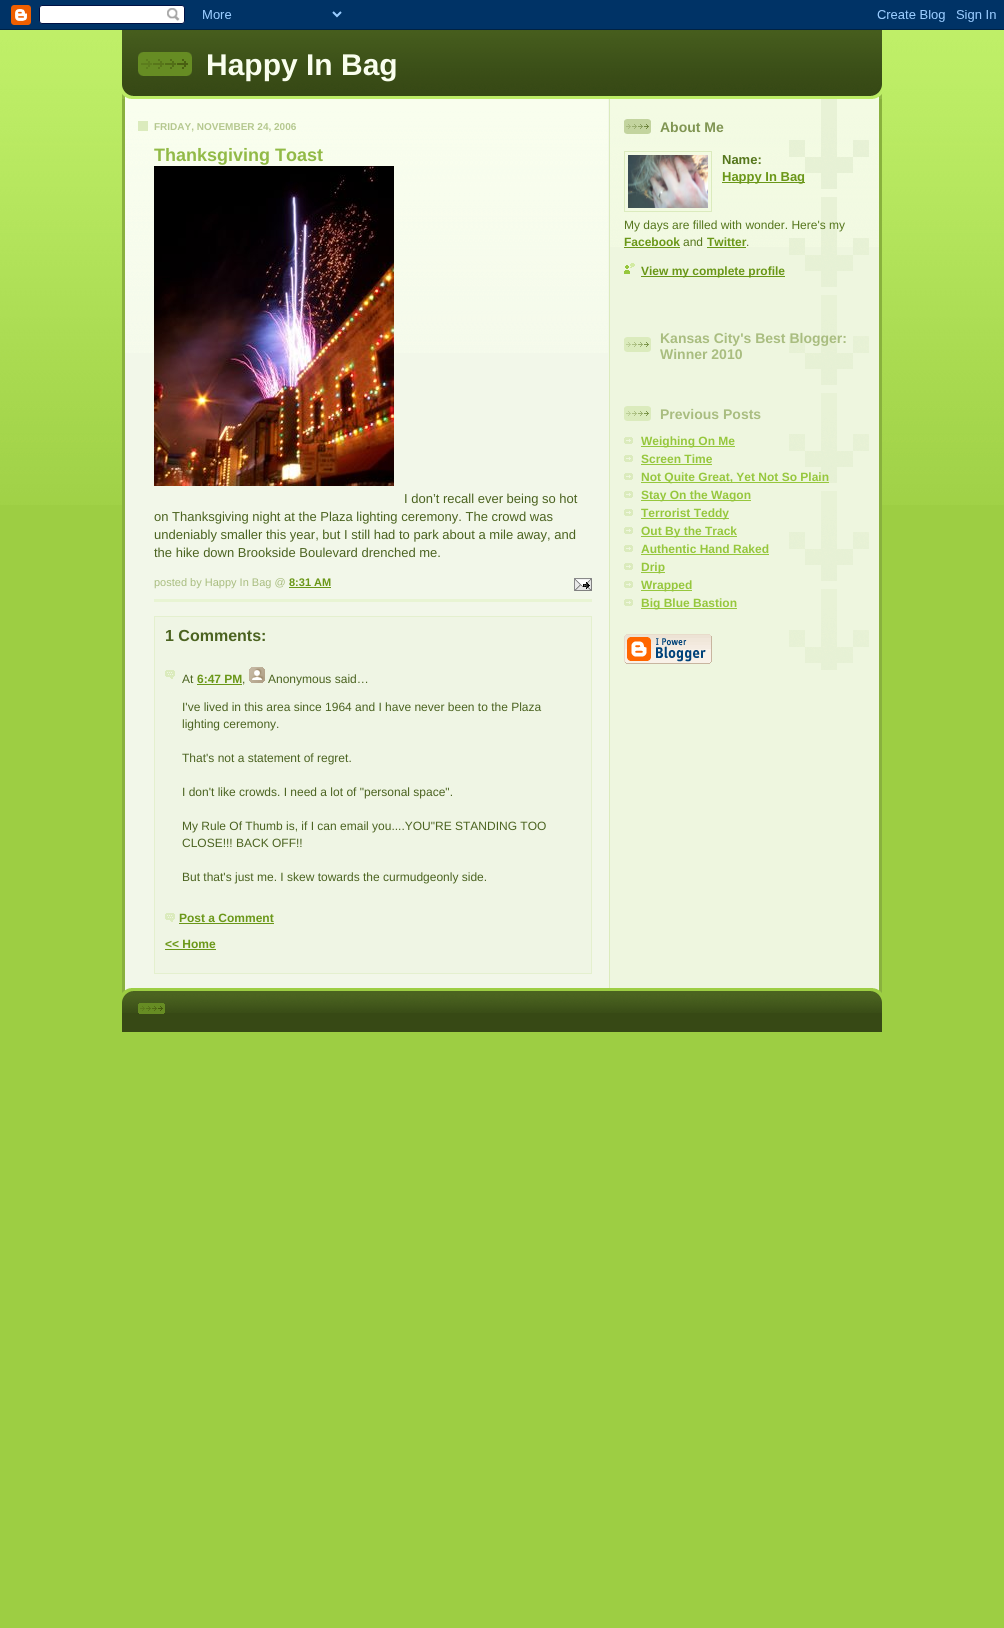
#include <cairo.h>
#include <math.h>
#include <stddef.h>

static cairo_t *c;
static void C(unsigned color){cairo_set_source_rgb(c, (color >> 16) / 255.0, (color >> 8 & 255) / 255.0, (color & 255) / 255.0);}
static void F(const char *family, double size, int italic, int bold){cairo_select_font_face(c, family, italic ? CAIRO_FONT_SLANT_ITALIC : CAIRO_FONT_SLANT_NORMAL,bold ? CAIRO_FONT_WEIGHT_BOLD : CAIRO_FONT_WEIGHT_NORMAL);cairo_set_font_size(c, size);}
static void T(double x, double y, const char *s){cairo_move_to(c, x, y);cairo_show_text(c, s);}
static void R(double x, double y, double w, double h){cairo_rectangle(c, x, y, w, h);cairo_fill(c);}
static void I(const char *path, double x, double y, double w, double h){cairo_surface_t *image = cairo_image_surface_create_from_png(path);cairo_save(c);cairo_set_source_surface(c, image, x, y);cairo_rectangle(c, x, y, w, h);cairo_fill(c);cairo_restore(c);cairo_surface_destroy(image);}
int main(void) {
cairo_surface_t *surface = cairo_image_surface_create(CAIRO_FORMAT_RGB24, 1004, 1628);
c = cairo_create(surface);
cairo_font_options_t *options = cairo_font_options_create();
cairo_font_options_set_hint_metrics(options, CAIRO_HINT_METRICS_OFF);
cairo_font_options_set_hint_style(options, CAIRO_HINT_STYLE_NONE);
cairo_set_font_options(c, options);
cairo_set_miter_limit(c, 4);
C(0x9dce43);
cairo_paint(c);
I("1.png",0,30,1004,475);
I("2.png",0,0,1004,30);
I("3.png",122,84,760,15);
I("4.png",122,30,760,54);
I("5.png",138,52,54,24);
F("Liberation Sans",30,0,1);
C(0xf9feee);
T(206,75,"Happy In Bag");
I("6.png",122,99,760,889);
I("7.png",125,99,483,254);
C(0xdbebbd);
R(138,121,10,10);
F("Liberation Sans",10,0,1);
C(0xb5c88f);
T(154,130,"FRIDAY, NOVEMBER 24, 2006");
C(0xe8f4d3);
R(154,599,438,3);
F("Liberation Sans",18,0,1);
C(0x92ba47);
T(154,161,"Thanksgiving Toast");
I("8.png",154,166,240,320);
F("Liberation Sans",13,0,0);
C(0x4b6320);
T(404,503,"I don’t recall ever being so hot");
T(154,521,"on Thanksgiving night at the Plaza lighting ceremony. The crowd was");
T(154,539,"undeniably smaller this year, but I still had to park about a mile away, and");
T(154,557,"the hike down Brookside Boulevard drenched me.");
F("Liberation Sans",11,0,0);
C(0xa9bd80);
T(154,586,"posted by Happy In Bag @");
F("Liberation Sans",11,0,1);
C(0x6a9718);
T(289,586,"8:31 AM");
R(289,587,42,1);
I("9.png",574,578,18,13);
C(0xeff5e4);
cairo_rectangle(c,154.5,616.5,437,357);
cairo_fill_preserve(c);
C(0xe4f0ce);
cairo_set_line_width(c,1);
cairo_stroke(c);
F("Liberation Sans",16,0,1);
C(0x4b6320);
T(165,641,"1 Comments:");
I("10.png",165,670,10,9);
F("Liberation Sans",12,0,0);
T(182,683,"At");
F("Liberation Sans",12,0,1);
C(0x6a9718);
T(197,683,"6:47 PM");
R(197,684,45,1);
F("Liberation Sans",12,0,0);
C(0x4b6320);
T(242,683,",");
I("11.png",249,667,16,16);
T(268,683,"Anonymous said…");
T(182,711,"I've lived in this area since 1964 and I have never been to the Plaza");
T(182,728,"lighting ceremony.");
T(182,762,"That's not a statement of regret.");
T(182,796,"I don't like crowds. I need a lot of \"personal space\".");
T(182,830,"My Rule Of Thumb is, if I can email you....YOU\"RE STANDING TOO");
T(182,847,"CLOSE!!! BACK OFF!!");
T(182,881,"But that's just me. I skew towards the curmudgeonly side.");
I("10.png",165,913,10,9);
F("Liberation Sans",12,0,1);
C(0x6a9718);
T(179,922,"Post a Comment");
R(179,923,95,1);
T(165,948,"<< Home");
R(165,949,51,1);
I("12.png",610,99,269,148);
I("13.png",789,99,80,571);
I("14.png",624,119,27,15);
F("Liberation Sans",14,0,1);
C(0x809552);
T(660,132,"About Me");
cairo_rectangle(c,624.5,151.5,87,60);
C(0xdbebbd);
cairo_stroke(c);
I("15.png",628,155,80,53);
F("Liberation Sans",13,0,1);
C(0x55761c);
T(722,164,"Name:");
C(0x6a9718);
R(722,182,83,1);
T(722,181,"Happy In Bag");
F("Liberation Sans",12,0,0);
C(0x55761c);
T(624,229,"My days are filled with wonder. Here's my");
F("Liberation Sans",12,0,1);
C(0x6a9718);
T(624,246,"Facebook");
R(624,247,56,1);
F("Liberation Sans",12,0,0);
C(0x55761c);
T(683,246,"and");
F("Liberation Sans",12,0,1);
C(0x6a9718);
T(707,246,"Twitter");
R(707,247,39,1);
F("Liberation Sans",12,0,0);
C(0x55761c);
T(746,246,".");
I("16.png",624,263,11,11);
C(0x6a9718);
R(641,276,144,1);
F("Liberation Sans",12,0,1);
T(641,275,"View my complete profile");
I("17.png",624,337,27,15);
F("Liberation Sans",14,0,1);
C(0xa9bd80);
T(660,343,"Kansas City's Best Blogger:");
T(660,359,"Winner 2010");
I("17.png",624,406,27,15);
T(660,419,"Previous Posts");
I("18.png",624,437,9,7);
C(0x96c73d);
R(641,446,94,1);
F("Liberation Sans",12,0,1);
T(641,445,"Weighing On Me");
I("18.png",624,455,9,7);
T(641,463,"Screen Time");
R(641,464,71,1);
I("18.png",624,473,9,7);
R(641,482,188,1);
T(641,481,"Not Quite Great, Yet Not So Plain");
I("18.png",624,491,9,7);
R(641,500,110,1);
T(641,499,"Stay On the Wagon");
I("18.png",624,509,9,7);
R(641,518,88,1);
T(641,517,"Terrorist Teddy");
I("18.png",624,527,9,7);
R(641,536,96,1);
T(641,535,"Out By the Track");
I("18.png",624,545,9,7);
T(641,553,"Authentic Hand Raked");
R(641,554,128,1);
I("18.png",624,563,9,7);
R(641,572,24,1);
T(641,571,"Drip");
I("18.png",624,581,9,7);
R(641,590,51,1);
T(641,589,"Wrapped");
I("18.png",624,599,9,7);
R(641,608,96,1);
T(641,607,"Big Blue Bastion");
I("19.png",624,634,88,30);
I("20.png",122,988,760,15);
C(0x374915);
R(122,1013,760,19);
I("21.png",122,1003,760,10);
I("22.png",138,1003,27,11);
cairo_surface_write_to_png(surface, "o.png");
cairo_font_options_destroy(options);
cairo_destroy(c);
cairo_surface_destroy(surface);
return 0;
}
